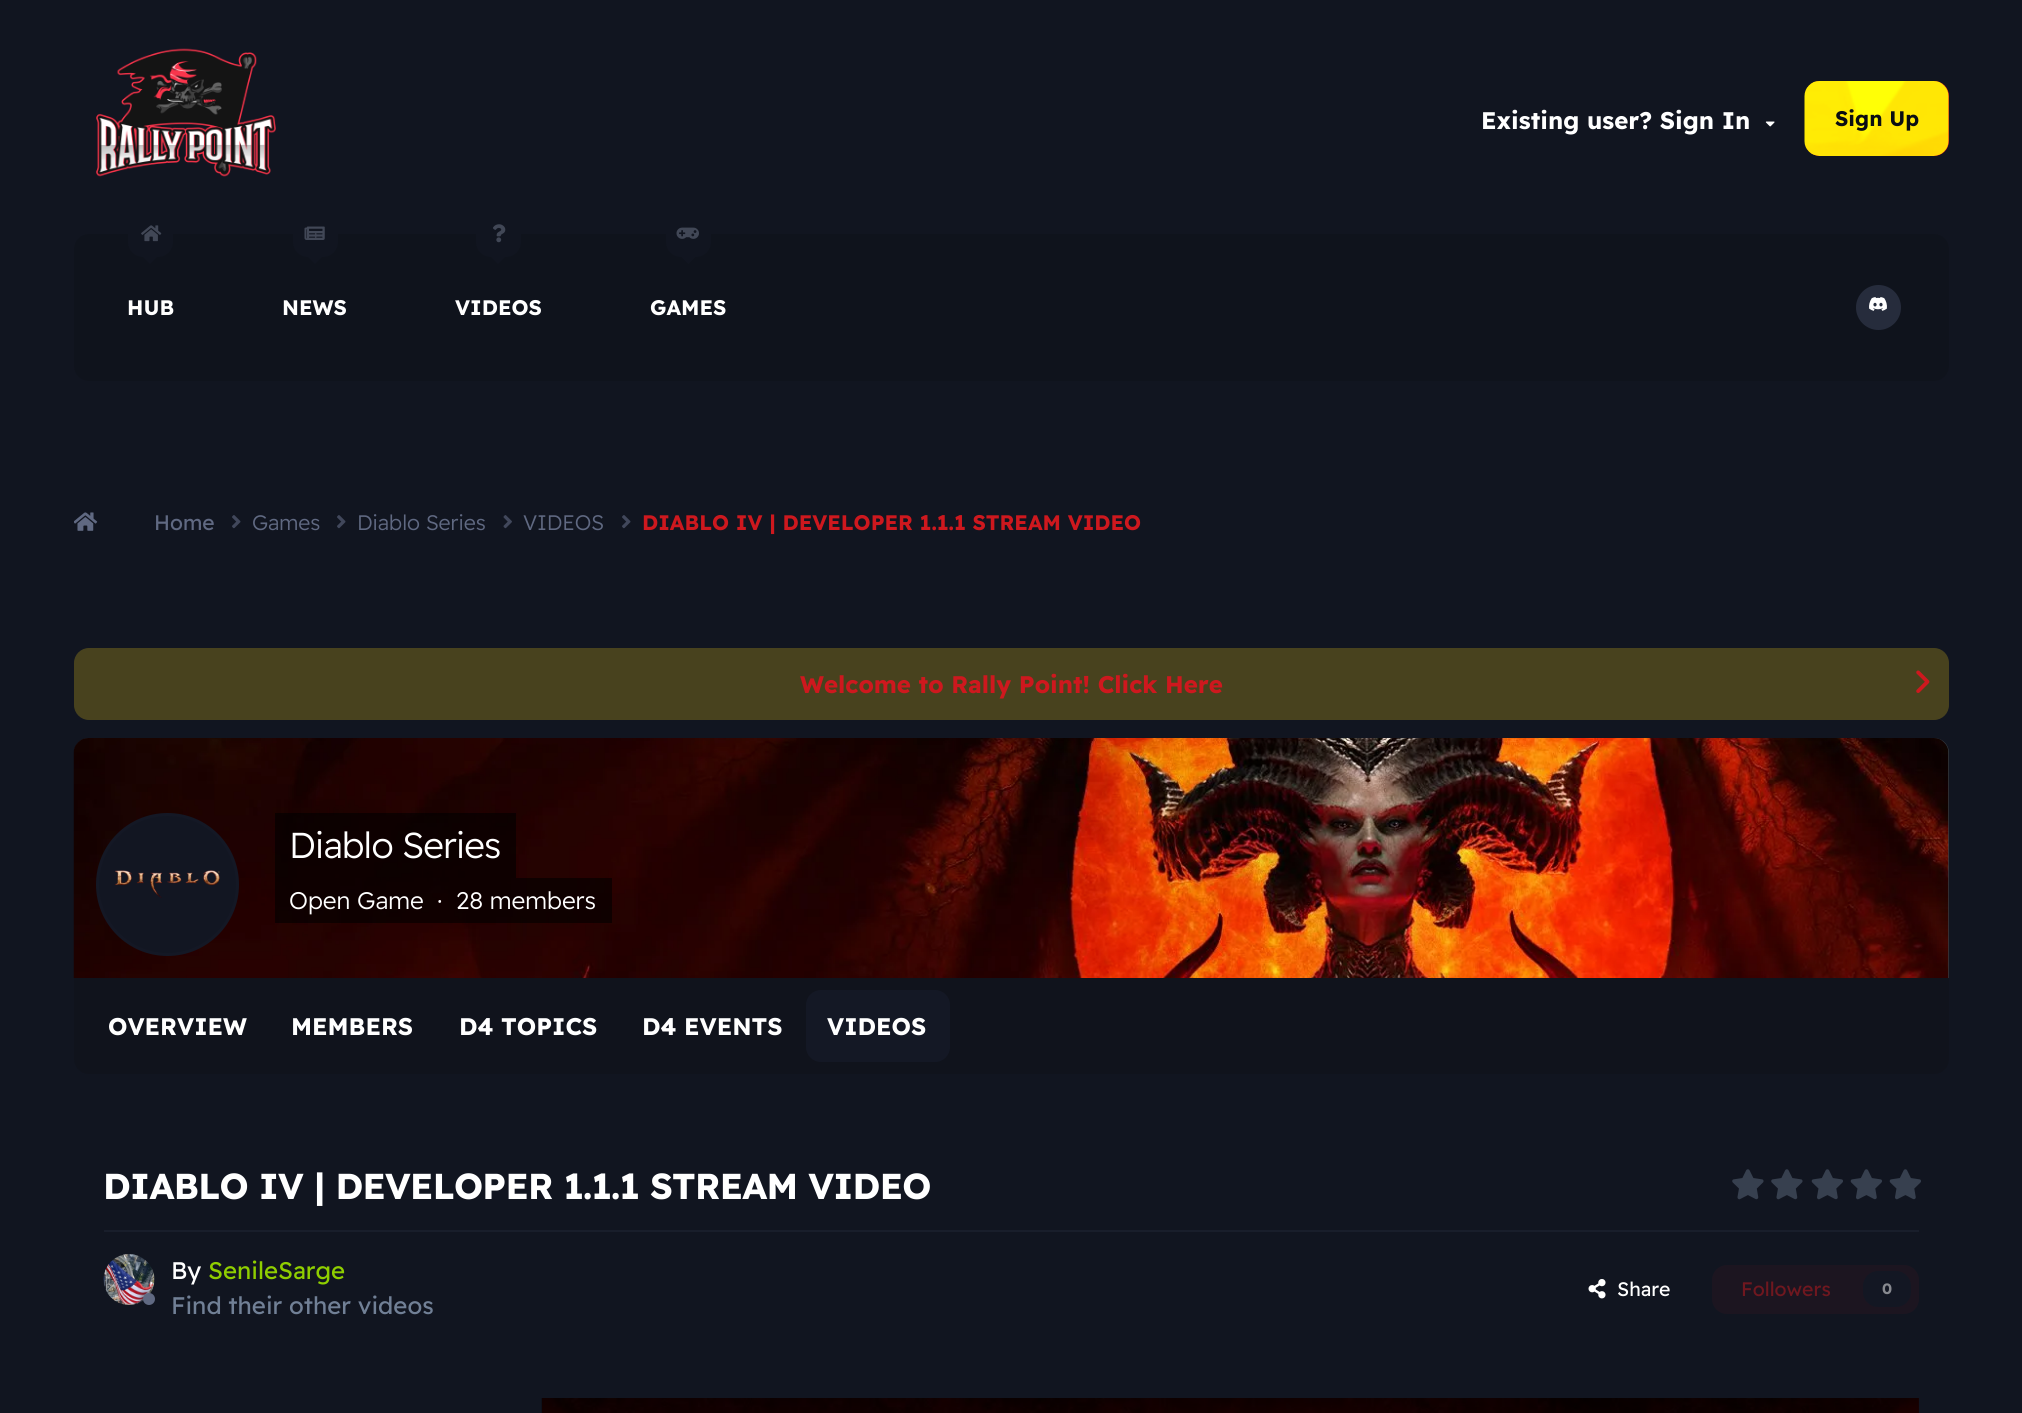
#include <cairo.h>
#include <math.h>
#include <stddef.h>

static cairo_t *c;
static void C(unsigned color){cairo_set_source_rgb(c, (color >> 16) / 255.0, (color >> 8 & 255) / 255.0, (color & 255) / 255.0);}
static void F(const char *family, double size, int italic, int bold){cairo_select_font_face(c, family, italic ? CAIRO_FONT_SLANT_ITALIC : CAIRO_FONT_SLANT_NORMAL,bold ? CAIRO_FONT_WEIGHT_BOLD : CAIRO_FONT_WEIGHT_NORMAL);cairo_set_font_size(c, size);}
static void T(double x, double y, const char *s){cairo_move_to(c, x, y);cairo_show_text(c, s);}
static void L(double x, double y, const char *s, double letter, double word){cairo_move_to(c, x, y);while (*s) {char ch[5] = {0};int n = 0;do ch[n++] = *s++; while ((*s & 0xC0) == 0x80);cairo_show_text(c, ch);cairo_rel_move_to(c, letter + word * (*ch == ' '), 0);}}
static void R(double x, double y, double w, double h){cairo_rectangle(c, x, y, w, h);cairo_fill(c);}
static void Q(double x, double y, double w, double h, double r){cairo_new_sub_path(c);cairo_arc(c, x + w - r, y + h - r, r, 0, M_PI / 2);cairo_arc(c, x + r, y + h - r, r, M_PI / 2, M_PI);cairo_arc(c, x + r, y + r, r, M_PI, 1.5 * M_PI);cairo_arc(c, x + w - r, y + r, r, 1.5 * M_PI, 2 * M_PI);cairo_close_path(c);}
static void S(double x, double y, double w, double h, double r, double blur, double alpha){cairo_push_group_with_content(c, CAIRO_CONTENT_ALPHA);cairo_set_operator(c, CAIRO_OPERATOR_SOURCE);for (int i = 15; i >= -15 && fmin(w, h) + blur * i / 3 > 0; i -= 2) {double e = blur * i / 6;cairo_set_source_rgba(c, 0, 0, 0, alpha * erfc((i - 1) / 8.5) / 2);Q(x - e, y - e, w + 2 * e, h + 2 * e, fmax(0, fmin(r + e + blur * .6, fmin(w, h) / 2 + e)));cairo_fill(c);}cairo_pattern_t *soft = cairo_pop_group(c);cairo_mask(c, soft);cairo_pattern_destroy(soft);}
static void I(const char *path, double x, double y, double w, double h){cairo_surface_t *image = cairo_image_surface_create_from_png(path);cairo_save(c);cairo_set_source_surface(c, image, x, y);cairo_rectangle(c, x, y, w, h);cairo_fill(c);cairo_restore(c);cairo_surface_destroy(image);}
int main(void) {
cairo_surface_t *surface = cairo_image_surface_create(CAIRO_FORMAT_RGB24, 2022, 1413);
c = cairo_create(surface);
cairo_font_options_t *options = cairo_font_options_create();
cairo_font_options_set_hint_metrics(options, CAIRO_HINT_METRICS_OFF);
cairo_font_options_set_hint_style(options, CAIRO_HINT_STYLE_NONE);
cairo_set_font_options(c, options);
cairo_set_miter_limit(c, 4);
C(0x111520);
cairo_paint(c);
I("1.png",96,48,180,129);
F("Readex Pro",24,0,1);
C(0xffffff);
T(1481,129,"Existing user? Sign In");
I("2.png",1765,121,10,6);
C(0xce181e);
Q(1805,81,144,75,15);
cairo_fill(c);
I("3.png",1804,81,145,75);
F("Readex Pro",21,0,1);
C(0x0a0d13);
T(1835,126,"Sign Up");
C(0x0f131c);
Q(74,234,1875,147,15);
cairo_fill(c);
C(0x111520);
Q(128,212,45,45,15);
cairo_fill(c);
I("4.png",141,225,21,17);
cairo_new_path(c);
cairo_move_to(c,141,255);
cairo_line_to(c,159,255);
cairo_line_to(c,150,264);
cairo_close_path(c);
cairo_fill(c);
C(0xffffff);
T(127,315,"HUB");
C(0x111520);
Q(293,212,45,45,15);
cairo_fill(c);
I("5.png",304,226,21,14);
cairo_new_path(c);
cairo_move_to(c,306,255);
cairo_line_to(c,324,255);
cairo_line_to(c,315,264);
cairo_close_path(c);
cairo_fill(c);
C(0xffffff);
T(282,315,"NEWS");
C(0x111520);
Q(476,212,45,45,15);
cairo_fill(c);
I("6.png",493,224,13,19);
cairo_new_path(c);
cairo_move_to(c,489,255);
cairo_line_to(c,507,255);
cairo_line_to(c,498,264);
cairo_close_path(c);
cairo_fill(c);
C(0xffffff);
T(455,315,"VIDEOS");
C(0x111520);
Q(666,212,45,45,15);
cairo_fill(c);
I("7.png",676,227,23,12);
cairo_new_path(c);
cairo_move_to(c,679.5,255);
cairo_line_to(c,697.5,255);
cairo_line_to(c,688.5,264);
cairo_close_path(c);
cairo_fill(c);
C(0xffffff);
T(650,315,"GAMES");
C(0x262c3c);
cairo_new_path(c);
cairo_arc(c,1878.5,307.5,22.5,0,2 * M_PI);
cairo_fill(c);
I("8.png",1869,297,18,14);
I("9.png",74,512,24,19);
F("Readex Pro",21,0,0);
C(0x606982);
T(154,530,"Home");
I("10.png",232,515,9,14);
F("Readex Pro Light",21,0,0);
T(252,530,"Games");
I("10.png",337,515,9,14);
T(357,530,"Diablo Series");
I("11.png",503,515,9,14);
T(523,530,"VIDEOS");
I("10.png",622,515,9,14);
F("Readex Pro",21,0,1);
C(0xce181e);
T(642,530,"DIABLO IV | DEVELOPER 1.1.1 STREAM VIDEO");
C(0x48421e);
Q(74,648,1875,72,15);
cairo_fill(c);
F("Readex Pro",24,0,1);
C(0xce181e);
T(800,693,"Welcome to Rally Point! Click Here");
I("12.png",1916,670,14,23);
C(0x353c41);
cairo_new_path(c);
cairo_move_to(c,89,738);
cairo_line_to(c,1934,738);
cairo_curve_to(c,1942.5,738,1949,744.5,1949,753);
cairo_line_to(c,1949,978);
cairo_line_to(c,74,978);
cairo_line_to(c,74,753);
cairo_curve_to(c,74,744.5,80.5,738,89,738);
cairo_close_path(c);
cairo_fill(c);
I("13.png",73,738,1876,240);
C(0x121622);
cairo_arc(c,167.5,884.5,70,0,2 * M_PI);
cairo_fill_preserve(c);
C(0x141825);
cairo_set_line_width(c,3);
cairo_stroke(c);
I("14.png",114,870,106,28);
cairo_set_source_rgba(c,0,0,0,0.6);
R(275,813,241,65);
F("Readex Pro Light",36,0,0);
C(0xffffff);
L(289,858,"Diablo Series",-.7,0);
cairo_set_source_rgba(c,0,0,0,0.6);
R(275,878,337,45);
F("Readex Pro Light",24,0,0);
C(0xffffff);
T(289,909,"Open Game");
T(437,909,"·");
T(456,909,"28 members");
C(0x10131c);
cairo_new_path(c);
cairo_move_to(c,74,978);
cairo_line_to(c,1949,978);
cairo_line_to(c,1949,1059);
cairo_curve_to(c,1949,1067.5,1942.5,1074,1934,1074);
cairo_line_to(c,89,1074);
cairo_curve_to(c,80.5,1074,74,1067.5,74,1059);
cairo_close_path(c);
cairo_fill(c);
F("Readex Pro",24,0,1);
C(0xffffff);
T(108,1035,"OVERVIEW");
T(291,1035,"MEMBERS");
T(459,1035,"D4 TOPICS");
T(642,1035,"D4 EVENTS");
C(0x141825);
Q(806,990,144,72,15);
cairo_fill(c);
C(0xffffff);
T(827,1035,"VIDEOS");
F("Readex Pro",36,0,1);
L(103,1199,"DIABLO IV | DEVELOPER 1.1.1 STREAM VIDEO",-.7,0);
I("15.png",1732,1169,32,31);
I("15.png",1771,1169,32,31);
I("16.png",1811,1169,32,31);
I("16.png",1850,1169,32,31);
I("16.png",1889,1169,32,31);
C(0x191e2b);
R(104,1230,1815,2);
I("17.png",103,1254,52,51);
C(0x111520);
S(141,1292,15,15,7.5,3,.56);
C(0x606982);
cairo_arc(c,149,1299,6,0,2 * M_PI);
cairo_fill(c);
F("Readex Pro",24,0,0);
C(0xffffff);
T(171,1279,"By");
C(0x8fce00);
T(208,1279,"SenileSarge");
C(0x718096);
T(171,1314,"Find their other videos");
I("18.png",1588,1279,18,20);
F("Readex Pro",19.5,0,0);
C(0xffffff);
T(1617,1296,"Share");
C(0x1c1520);
Q(1712,1265,207,49,15);
cairo_fill(c);
C(0x70171f);
T(1741,1296,"Followers");
C(0x131723);
Q(1863,1271,48,36,15);
cairo_fill(c);
F("Readex Pro",15,0,1);
C(0x888a90);
T(1882,1294,"0");
I("19.png",541,1398,1378,15);
cairo_surface_write_to_png(surface, "o.png");
cairo_font_options_destroy(options);
cairo_destroy(c);
cairo_surface_destroy(surface);
return 0;
}
